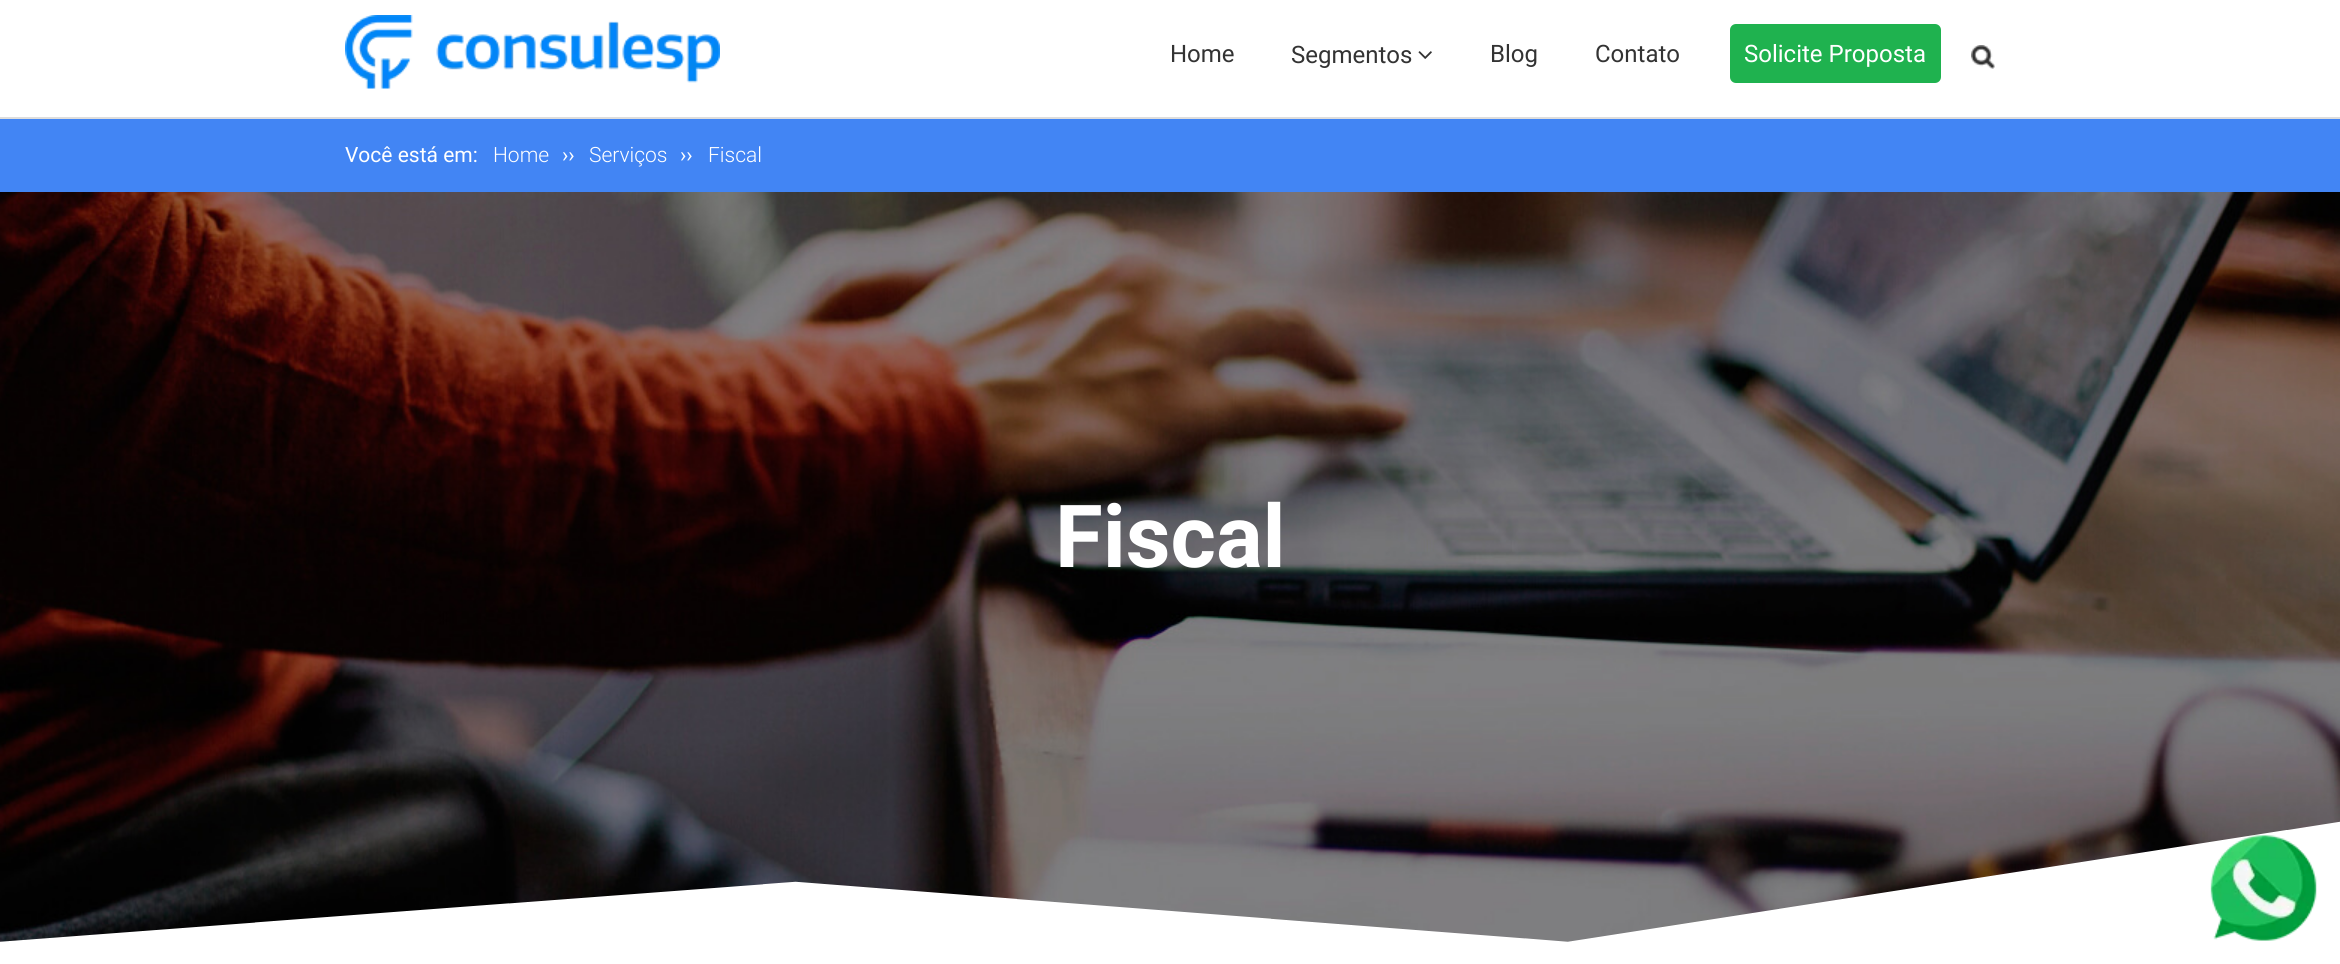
#include <cairo.h>
#include <math.h>
#include <stddef.h>

static cairo_t *c;
static void C(unsigned color){cairo_set_source_rgb(c, (color >> 16) / 255.0, (color >> 8 & 255) / 255.0, (color & 255) / 255.0);}
static void F(const char *family, double size, int italic, int bold){cairo_select_font_face(c, family, italic ? CAIRO_FONT_SLANT_ITALIC : CAIRO_FONT_SLANT_NORMAL,bold ? CAIRO_FONT_WEIGHT_BOLD : CAIRO_FONT_WEIGHT_NORMAL);cairo_set_font_size(c, size);}
static void T(double x, double y, const char *s){cairo_move_to(c, x, y);cairo_show_text(c, s);}
static void R(double x, double y, double w, double h){cairo_rectangle(c, x, y, w, h);cairo_fill(c);}
static void Q(double x, double y, double w, double h, double r){cairo_new_sub_path(c);cairo_arc(c, x + w - r, y + h - r, r, 0, M_PI / 2);cairo_arc(c, x + r, y + h - r, r, M_PI / 2, M_PI);cairo_arc(c, x + r, y + r, r, M_PI, 1.5 * M_PI);cairo_arc(c, x + w - r, y + r, r, 1.5 * M_PI, 2 * M_PI);cairo_close_path(c);}
static void I(const char *path, double x, double y, double w, double h){cairo_surface_t *image = cairo_image_surface_create_from_png(path);cairo_save(c);cairo_set_source_surface(c, image, x, y);cairo_rectangle(c, x, y, w, h);cairo_fill(c);cairo_restore(c);cairo_surface_destroy(image);}
int main(void) {
cairo_surface_t *surface = cairo_image_surface_create(CAIRO_FORMAT_RGB24, 2340, 964);
c = cairo_create(surface);
cairo_font_options_t *options = cairo_font_options_create();
cairo_font_options_set_hint_metrics(options, CAIRO_HINT_METRICS_OFF);
cairo_font_options_set_hint_style(options, CAIRO_HINT_STYLE_NONE);
cairo_set_font_options(c, options);
cairo_set_miter_limit(c, 4);
C(0xffffff);
cairo_paint(c);
C(0xdddddd);
R(0,117,2340,2);
I("1.png",345,15,375,74);
F("Roboto",24,0,0);
C(0x333333);
T(1170,62,"Home");
T(1291,63,"Segmentos");
I("2.png",1418,51,14,8);
T(1490,62,"Blog");
T(1595,62,"Contato");
C(0x1fb24f);
Q(1730,24,211,59,6);
cairo_fill(c);
C(0xffffff);
T(1744,62,"Solicite Proposta");
I("3.png",1971,45,24,24);
C(0x4285f4);
R(0,119,2340,73);
F("Roboto",21,0,0);
C(0xffffff);
T(345,162,"Você está em:");
F("Roboto Light",21,0,0);
T(493,162,"Home");
F("Roboto",21,0,0);
T(562,162,"››");
F("Roboto Light",21,0,0);
T(589,162,"Serviços");
F("Roboto",21,0,0);
T(680,162,"››");
F("Roboto Light",21,0,0);
T(708,162,"Fiscal");
I("4.png",0,192,2340,750);
F("Roboto",87,0,1);
T(1055,567,"Fiscal");
I("5.png",2210,835,107,106);
cairo_surface_write_to_png(surface, "o.png");
cairo_font_options_destroy(options);
cairo_destroy(c);
cairo_surface_destroy(surface);
return 0;
}
